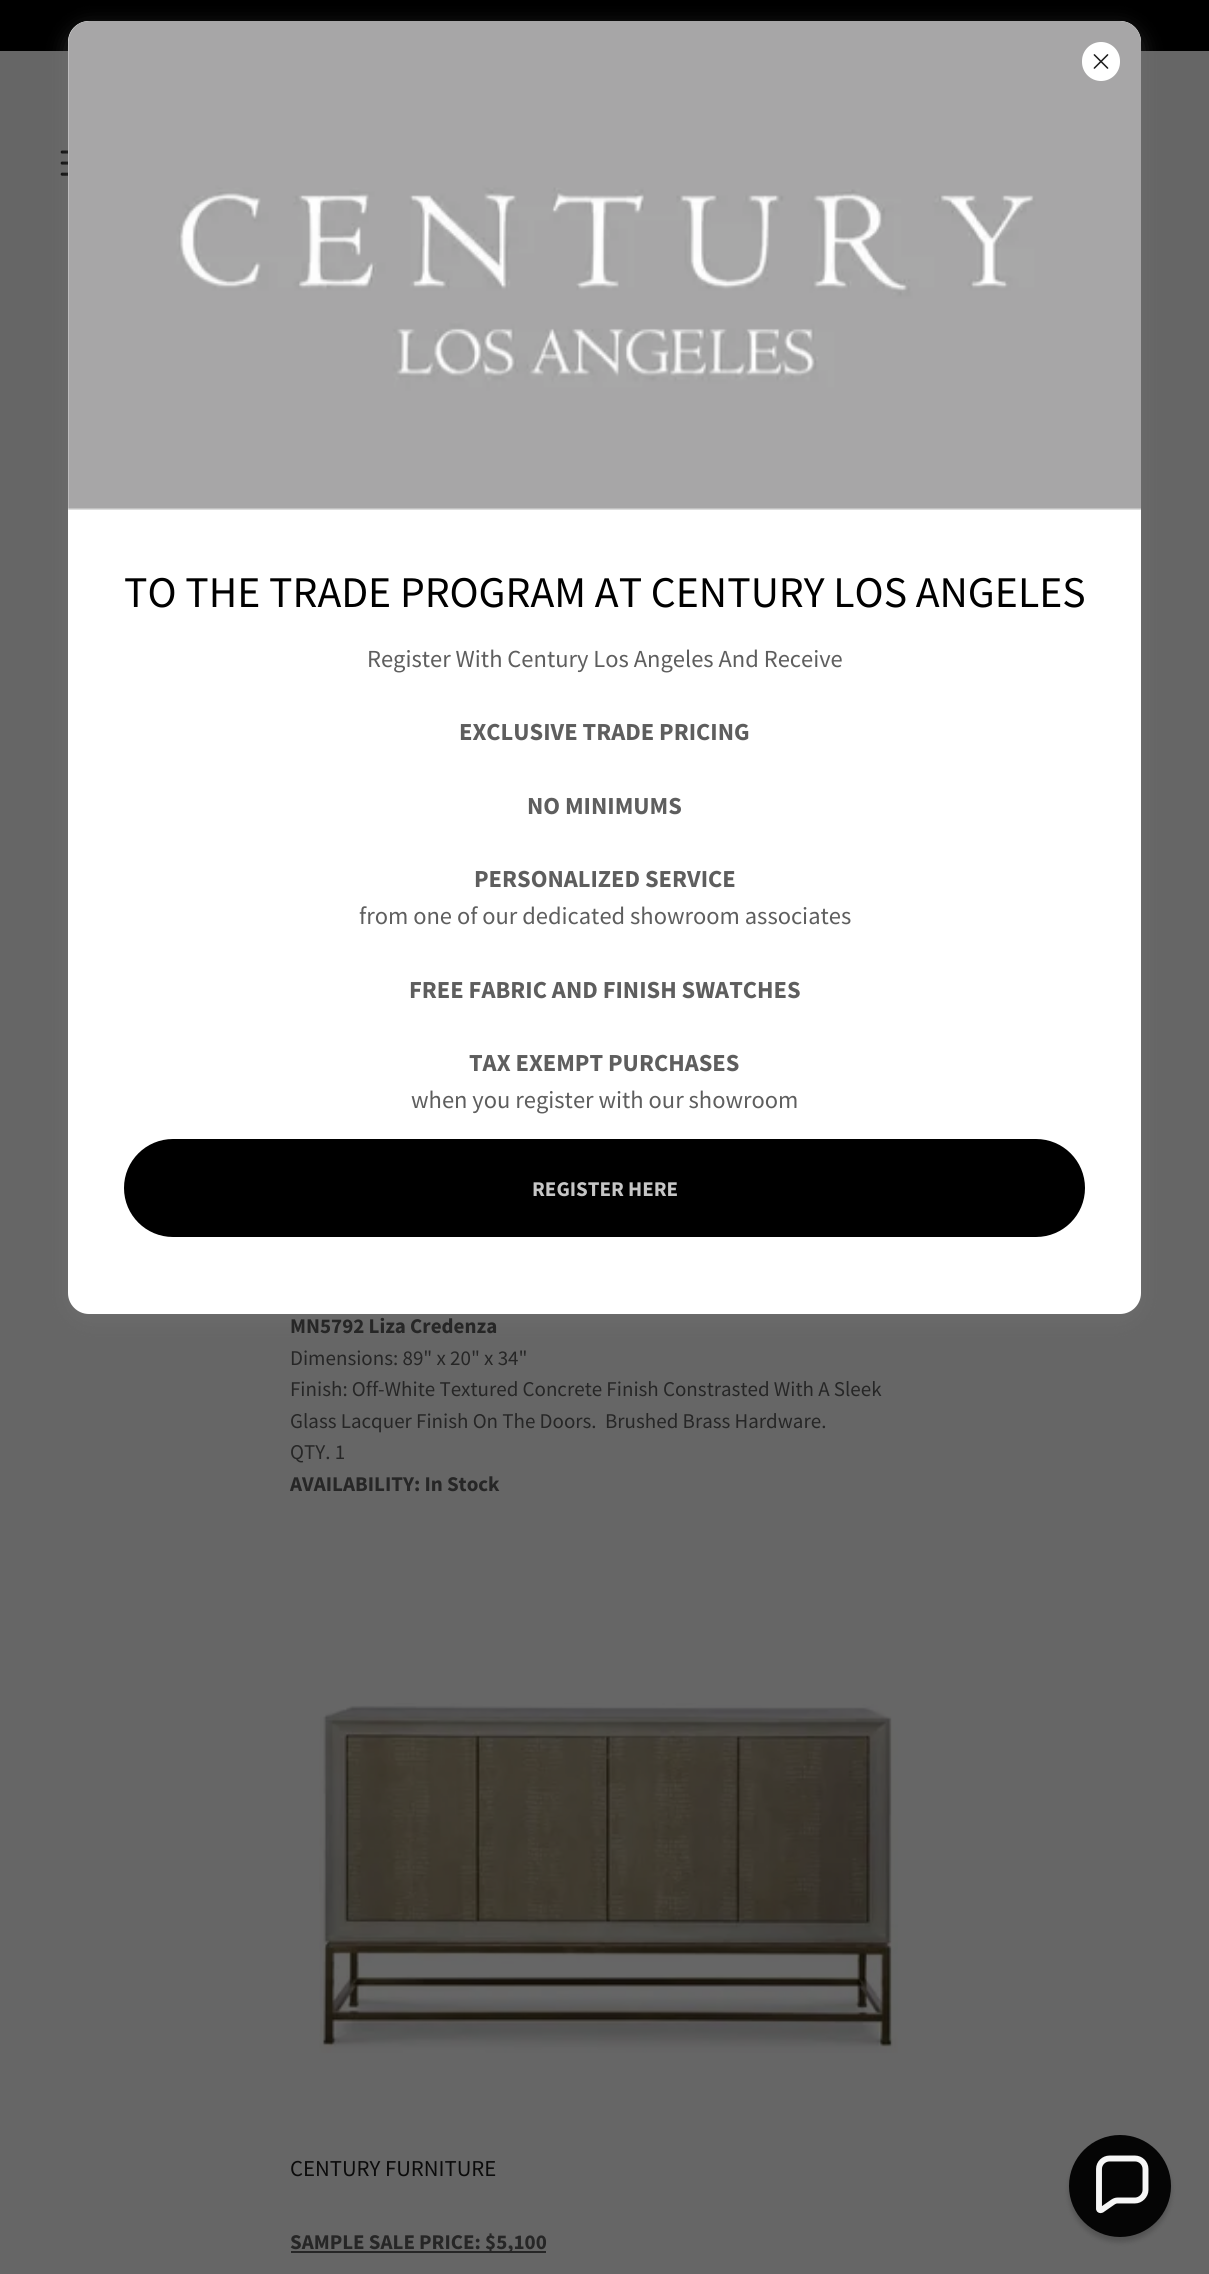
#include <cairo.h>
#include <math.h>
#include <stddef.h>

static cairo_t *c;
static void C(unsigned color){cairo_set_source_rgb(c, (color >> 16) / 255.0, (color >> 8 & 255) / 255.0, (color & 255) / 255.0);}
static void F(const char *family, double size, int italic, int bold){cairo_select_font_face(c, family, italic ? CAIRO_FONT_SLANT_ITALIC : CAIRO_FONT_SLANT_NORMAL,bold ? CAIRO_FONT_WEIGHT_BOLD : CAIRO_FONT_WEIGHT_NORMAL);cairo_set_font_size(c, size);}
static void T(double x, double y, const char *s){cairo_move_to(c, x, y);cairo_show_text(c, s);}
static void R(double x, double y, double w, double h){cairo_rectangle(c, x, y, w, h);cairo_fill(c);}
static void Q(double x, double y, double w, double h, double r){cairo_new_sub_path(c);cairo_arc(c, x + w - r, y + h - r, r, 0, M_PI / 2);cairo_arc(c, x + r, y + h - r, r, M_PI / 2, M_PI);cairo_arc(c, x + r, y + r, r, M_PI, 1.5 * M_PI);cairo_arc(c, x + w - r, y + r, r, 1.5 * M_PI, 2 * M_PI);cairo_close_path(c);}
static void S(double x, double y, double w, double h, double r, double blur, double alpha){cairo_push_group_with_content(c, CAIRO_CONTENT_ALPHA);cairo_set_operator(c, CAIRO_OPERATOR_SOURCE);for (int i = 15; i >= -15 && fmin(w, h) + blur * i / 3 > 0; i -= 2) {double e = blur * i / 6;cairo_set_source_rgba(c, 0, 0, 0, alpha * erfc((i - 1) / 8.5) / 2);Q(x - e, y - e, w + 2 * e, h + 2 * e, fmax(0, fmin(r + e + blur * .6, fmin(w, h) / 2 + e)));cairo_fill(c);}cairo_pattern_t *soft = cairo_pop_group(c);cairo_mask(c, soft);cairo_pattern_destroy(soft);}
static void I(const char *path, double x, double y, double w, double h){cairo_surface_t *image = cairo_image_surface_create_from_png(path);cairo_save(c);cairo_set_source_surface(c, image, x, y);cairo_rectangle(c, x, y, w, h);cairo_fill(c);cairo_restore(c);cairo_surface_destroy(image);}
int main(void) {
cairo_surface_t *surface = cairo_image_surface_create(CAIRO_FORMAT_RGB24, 1209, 2274);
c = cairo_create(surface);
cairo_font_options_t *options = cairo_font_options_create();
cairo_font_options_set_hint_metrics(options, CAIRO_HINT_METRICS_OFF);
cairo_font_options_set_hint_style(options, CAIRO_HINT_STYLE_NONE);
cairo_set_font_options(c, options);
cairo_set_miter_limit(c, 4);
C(0x666666);
cairo_paint(c);
C(0x000000);
R(0,0,1209,51);
I("1.png",60,150,8,26);
C(0x757575);
S(68,28,1073,1293,21,10.5,.4);
C(0xffffff);
Q(68,21,1073,1293,21);
cairo_fill(c);
I("3.png",68,21,1073,489);
Q(1082,42,38,39,19);
cairo_fill(c);
I("2.png",1093,54,16,15);
F("Source Sans Pro",43.75,0,0);
C(0x000000);
T(124,607,"TO THE TRADE PROGRAM AT CENTURY LOS ANGELES");
F("Source Sans Pro",24.5,0,0);
C(0x5e5e5e);
T(367,667,"Register With Century Los Angeles And Receive");
F("Source Sans Pro",24.5,0,1);
T(459,740,"EXCLUSIVE TRADE PRICING");
T(527,814,"NO MINIMUMS");
T(474,887,"PERSONALIZED SERVICE");
F("Source Sans Pro",24.5,0,0);
T(359,924,"from one of our dedicated showroom associates");
F("Source Sans Pro",24.5,0,1);
T(409,998,"FREE FABRIC AND FINISH SWATCHES");
T(469,1071,"TAX EXEMPT PURCHASES");
F("Source Sans Pro",24.5,0,0);
T(411,1108,"when you register with our showroom");
C(0x000000);
Q(124,1139,961,98,49);
cairo_fill(c);
F("Source Sans Pro",21,0,1);
C(0xc6c6c6);
T(532,1196,"REGISTER HERE");
C(0x262626);
T(290,1333,"MN5792 Liza Credenza");
F("Source Sans Pro",21,0,0);
T(290,1365,"Dimensions: 89\" x 20\" x 34\"");
T(290,1396,"Finish: Off-White Textured Concrete Finish Constrasted With A Sleek");
T(290,1428,"Glass Lacquer Finish On The Doors.  Brushed Brass Hardware.");
T(290,1459,"QTY. 1");
F("Source Sans Pro",21,0,1);
T(290,1491,"AVAILABILITY: In Stock");
I("4.png",319,1703,579,350);
F("Source Sans Pro",22.75,0,0);
C(0x0b0b0b);
T(290,2176,"CENTURY FURNITURE");
C(0x262626);
R(291,2251,255,2);
F("Source Sans Pro",21,0,1);
T(290,2249,"SAMPLE SALE PRICE: $5,100");
C(0x050505);
S(1069,2140,102,102,51,2.5,.2);
C(0x050505);
cairo_arc(c,1120,2186,51,0,2 * M_PI);
cairo_fill(c);
cairo_new_path(c);
cairo_move_to(c,1135,2158.5);
cairo_line_to(c,1109.5,2158.5);
cairo_curve_to(c,1104,2158.5,1099,2163,1099,2169);
cairo_line_to(c,1099,2209);
cairo_curve_to(c,1099,2210,1100.5,2210.5,1101.5,2210);
cairo_line_to(c,1113,2202);
cairo_curve_to(c,1114.5,2201,1116,2200.5,1117.5,2200.5);
cairo_line_to(c,1135,2200.5);
cairo_curve_to(c,1140.5,2200.5,1145.5,2195.5,1145.5,2190);
cairo_line_to(c,1145.5,2169);
cairo_curve_to(c,1145.5,2163,1140.5,2158.5,1135,2158.5);
cairo_close_path(c);
C(0xf7f7f7);
cairo_set_line_width(c,5.9);
cairo_stroke(c);
cairo_surface_write_to_png(surface, "o.png");
cairo_font_options_destroy(options);
cairo_destroy(c);
cairo_surface_destroy(surface);
return 0;
}
